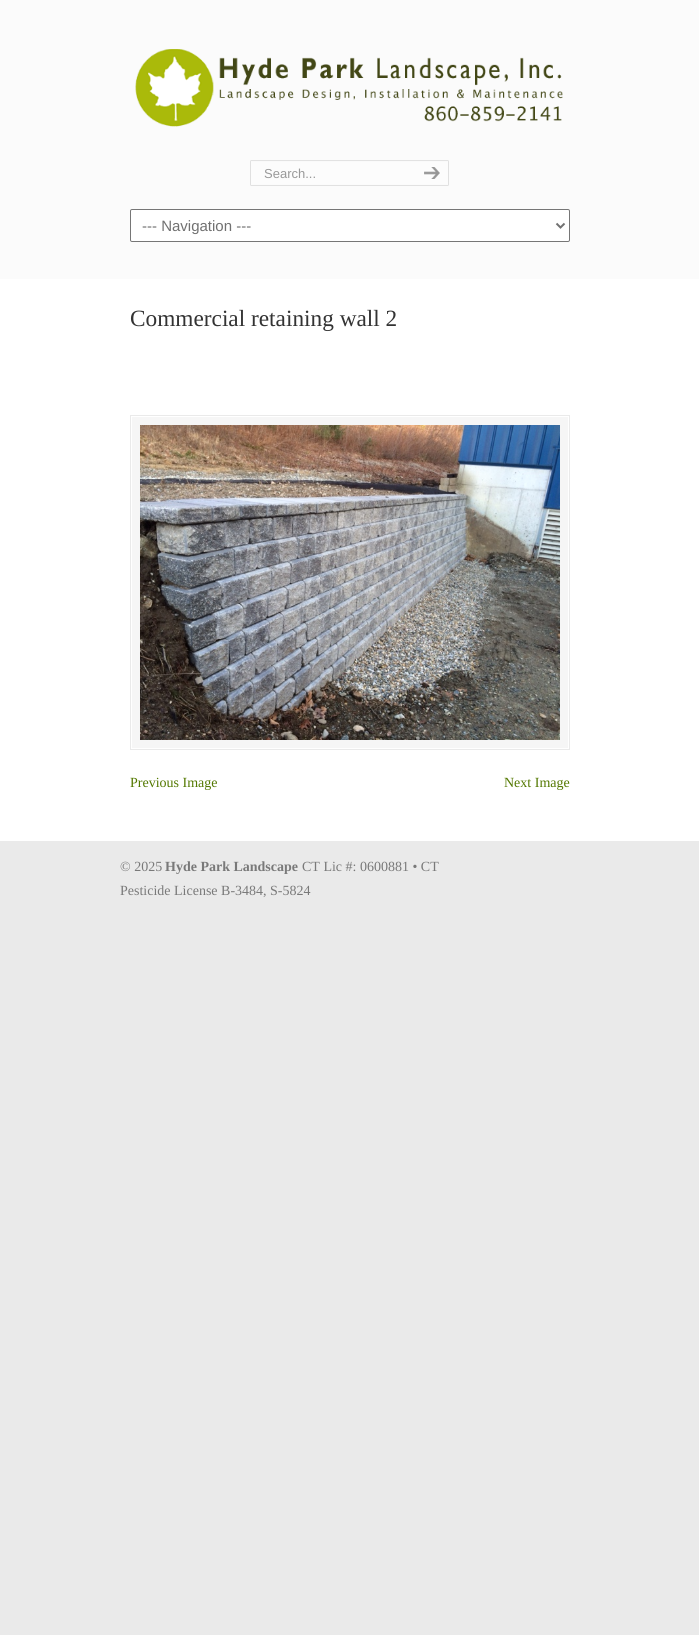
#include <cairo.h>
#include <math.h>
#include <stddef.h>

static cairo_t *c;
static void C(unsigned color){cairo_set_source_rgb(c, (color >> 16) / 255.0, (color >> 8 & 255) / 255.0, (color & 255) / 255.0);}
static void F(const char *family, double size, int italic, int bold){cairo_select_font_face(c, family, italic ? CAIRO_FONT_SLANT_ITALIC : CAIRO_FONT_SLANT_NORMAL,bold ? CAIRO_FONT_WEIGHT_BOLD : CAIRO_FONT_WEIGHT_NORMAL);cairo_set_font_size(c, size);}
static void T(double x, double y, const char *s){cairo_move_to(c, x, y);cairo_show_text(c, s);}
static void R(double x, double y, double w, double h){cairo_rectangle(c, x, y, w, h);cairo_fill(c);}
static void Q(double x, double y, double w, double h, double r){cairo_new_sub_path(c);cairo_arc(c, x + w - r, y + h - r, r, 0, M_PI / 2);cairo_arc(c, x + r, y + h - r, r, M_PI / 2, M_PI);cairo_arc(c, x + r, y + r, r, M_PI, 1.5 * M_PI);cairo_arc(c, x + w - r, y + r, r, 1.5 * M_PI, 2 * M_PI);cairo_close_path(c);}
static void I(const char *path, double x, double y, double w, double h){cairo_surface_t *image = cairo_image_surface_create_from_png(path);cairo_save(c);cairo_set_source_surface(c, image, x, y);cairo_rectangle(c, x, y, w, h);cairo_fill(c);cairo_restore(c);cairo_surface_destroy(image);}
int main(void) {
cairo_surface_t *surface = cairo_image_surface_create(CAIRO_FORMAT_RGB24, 699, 1635);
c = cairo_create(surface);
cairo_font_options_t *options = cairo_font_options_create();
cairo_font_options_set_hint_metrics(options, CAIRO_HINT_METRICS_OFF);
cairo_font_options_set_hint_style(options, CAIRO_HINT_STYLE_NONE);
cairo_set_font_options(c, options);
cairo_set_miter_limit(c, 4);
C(0xeaeaea);
cairo_paint(c);
C(0xfbfbfb);
R(0,0,699,279);
I("1.png",135,49,428,78);
I("2.png",250,160,159,26);
F("Liberation Sans",13,0,0);
C(0x999999);
T(264,178,"Search...");
I("3.png",409,160,40,26);
C(0xffffff);
Q(130.5,209.5,439,32,1.5);
cairo_fill_preserve(c);
C(0x767676);
cairo_set_line_width(c,1);
cairo_stroke(c);
cairo_new_path(c);
cairo_move_to(c,556.5,223.5);
cairo_line_to(c,560.5,227.5);
cairo_line_to(c,564.5,223.5);
C(0x717171);
cairo_set_line_width(c,2);
cairo_stroke(c);
F("Liberation Sans",15,0,0);
T(142,231,"--- Navigation ---");
C(0xffffff);
R(0,279,699,562);
F("Liberation Serif",23.3,0,0);
C(0x333333);
T(130,326,"Commercial retaining wall 2");
C(0xf6f6f6);
R(132,417,436,331);
cairo_rectangle(c,130.5,415.5,439,334);
C(0xeaeaea);
cairo_set_line_width(c,1);
cairo_stroke(c);
I("4.png",140,425,420,315);
F("Liberation Serif",14,0,0);
C(0x537800);
T(130,787,"Previous Image");
T(504,787,"Next Image");
C(0x797979);
T(120,871,"© 2025");
F("Liberation Serif",14,0,1);
T(165,871,"Hyde Park Landscape");
F("Liberation Serif",14,0,0);
T(302,871,"CT Lic #: 0600881 • CT");
T(120,895,"Pesticide License B-3484, S-5824");
cairo_surface_write_to_png(surface, "o.png");
cairo_font_options_destroy(options);
cairo_destroy(c);
cairo_surface_destroy(surface);
return 0;
}
